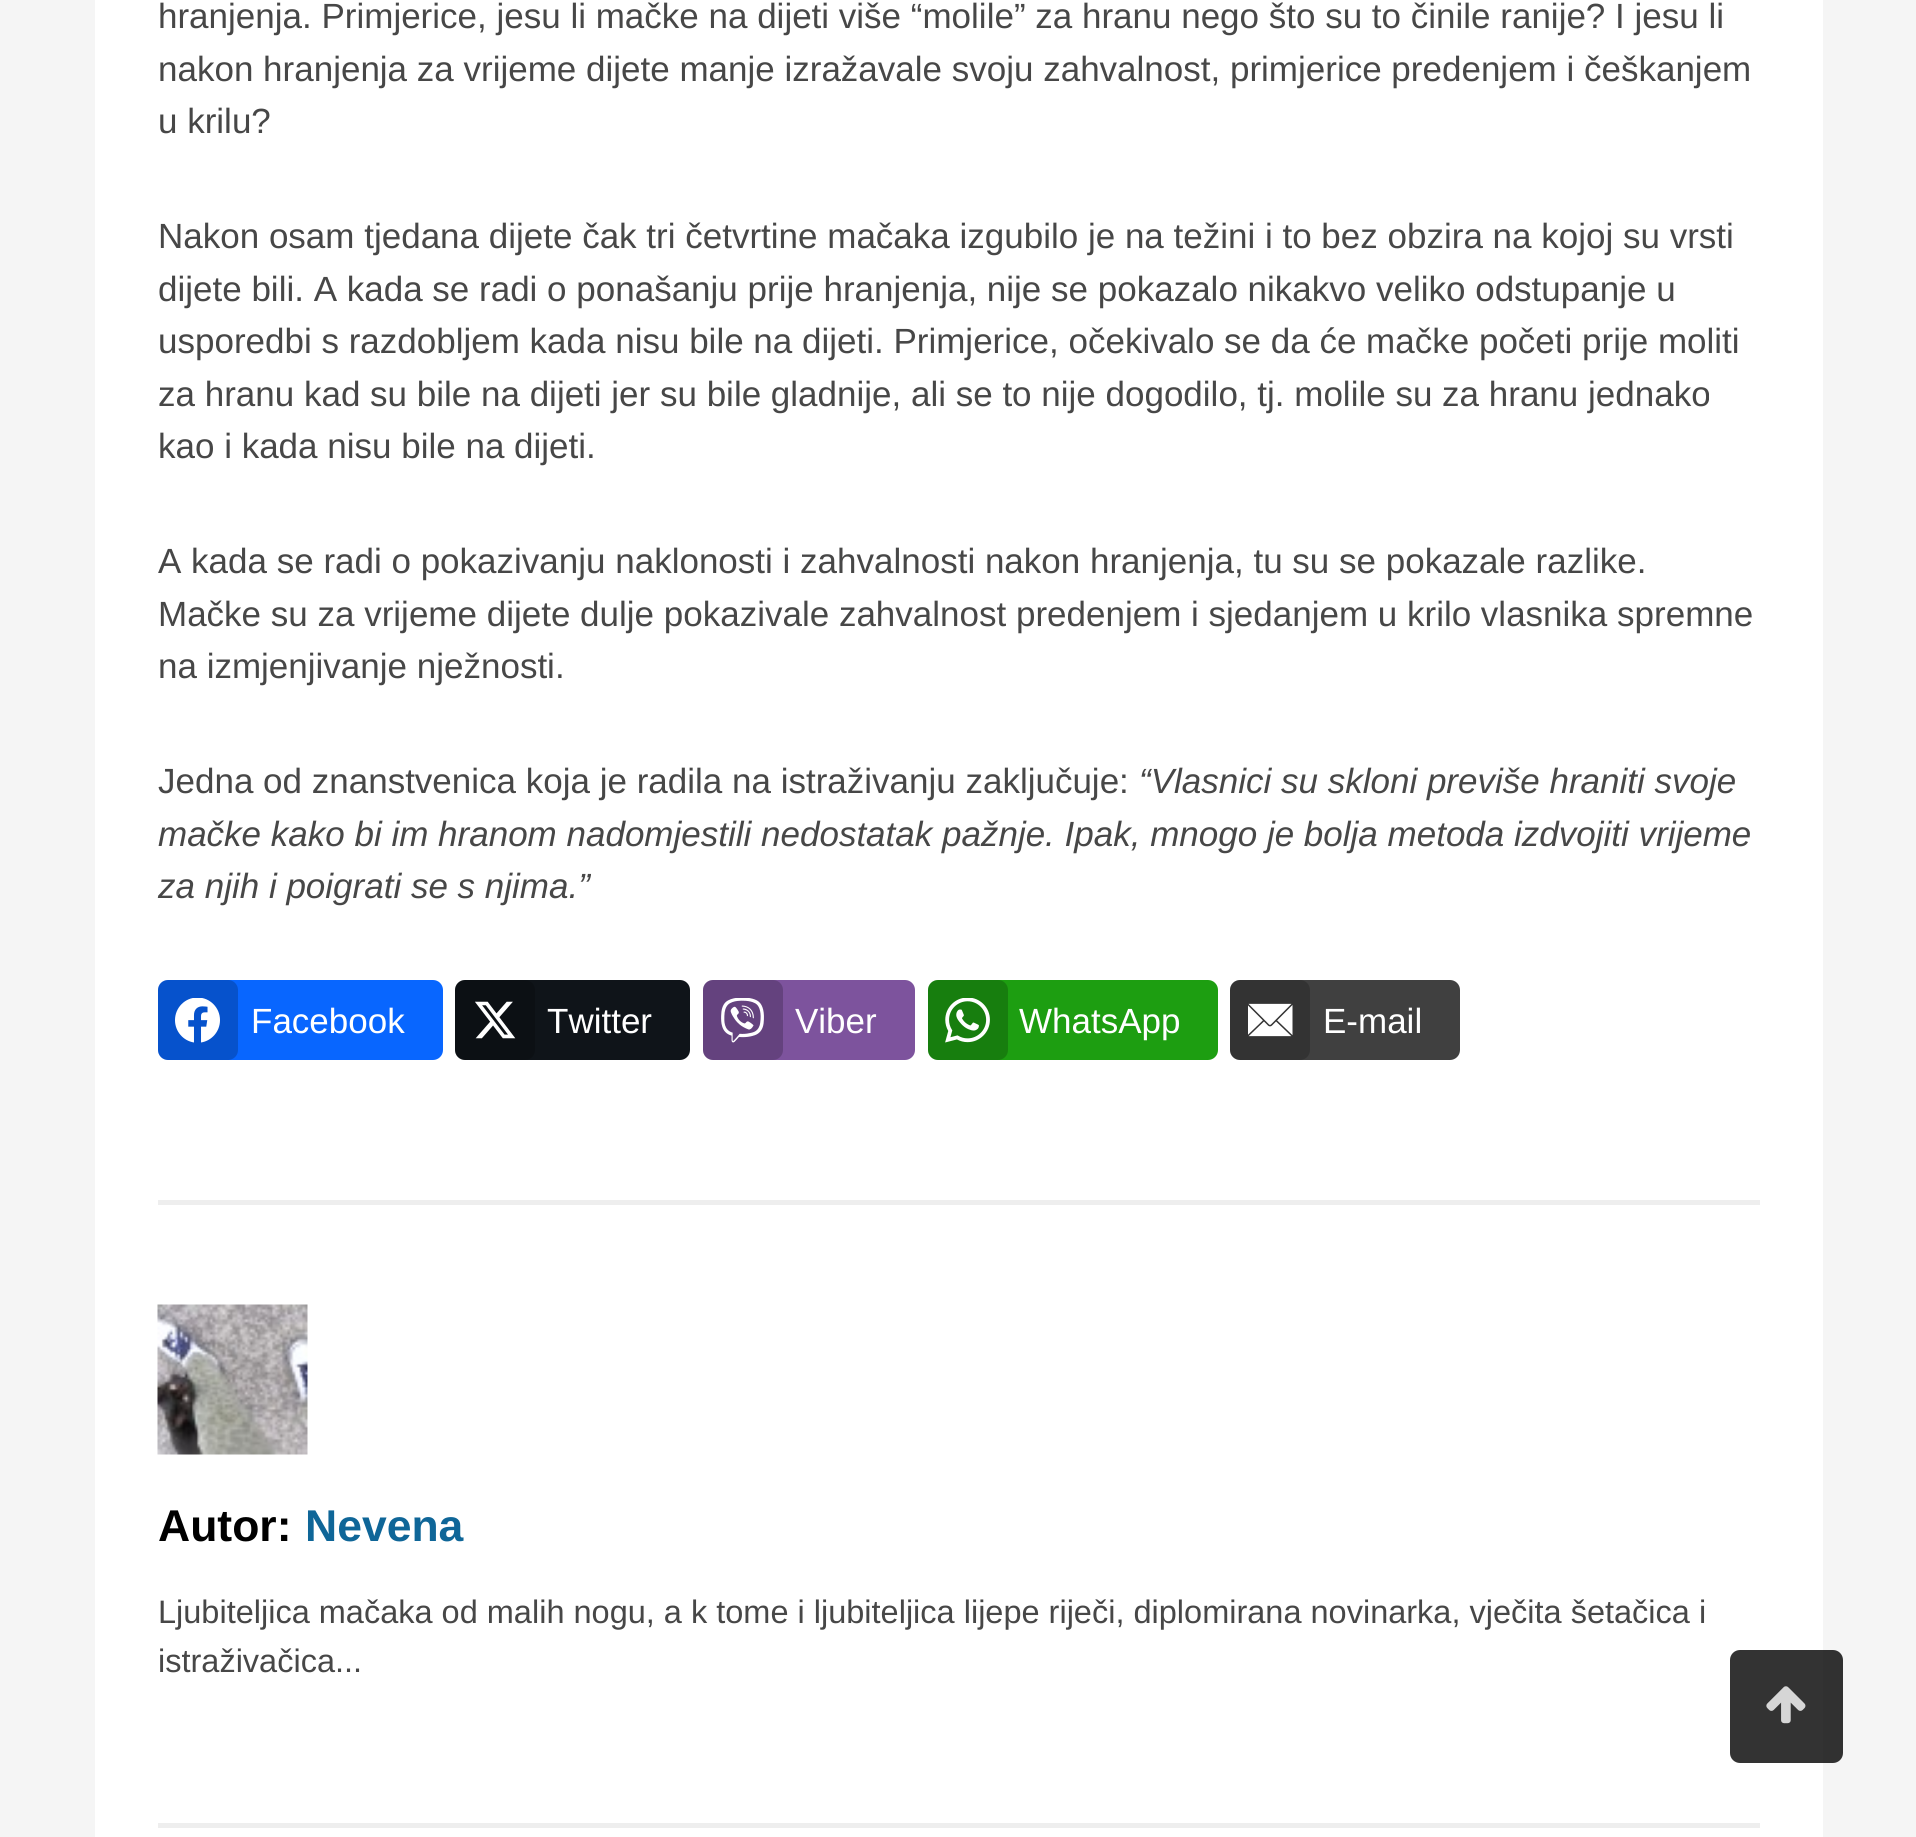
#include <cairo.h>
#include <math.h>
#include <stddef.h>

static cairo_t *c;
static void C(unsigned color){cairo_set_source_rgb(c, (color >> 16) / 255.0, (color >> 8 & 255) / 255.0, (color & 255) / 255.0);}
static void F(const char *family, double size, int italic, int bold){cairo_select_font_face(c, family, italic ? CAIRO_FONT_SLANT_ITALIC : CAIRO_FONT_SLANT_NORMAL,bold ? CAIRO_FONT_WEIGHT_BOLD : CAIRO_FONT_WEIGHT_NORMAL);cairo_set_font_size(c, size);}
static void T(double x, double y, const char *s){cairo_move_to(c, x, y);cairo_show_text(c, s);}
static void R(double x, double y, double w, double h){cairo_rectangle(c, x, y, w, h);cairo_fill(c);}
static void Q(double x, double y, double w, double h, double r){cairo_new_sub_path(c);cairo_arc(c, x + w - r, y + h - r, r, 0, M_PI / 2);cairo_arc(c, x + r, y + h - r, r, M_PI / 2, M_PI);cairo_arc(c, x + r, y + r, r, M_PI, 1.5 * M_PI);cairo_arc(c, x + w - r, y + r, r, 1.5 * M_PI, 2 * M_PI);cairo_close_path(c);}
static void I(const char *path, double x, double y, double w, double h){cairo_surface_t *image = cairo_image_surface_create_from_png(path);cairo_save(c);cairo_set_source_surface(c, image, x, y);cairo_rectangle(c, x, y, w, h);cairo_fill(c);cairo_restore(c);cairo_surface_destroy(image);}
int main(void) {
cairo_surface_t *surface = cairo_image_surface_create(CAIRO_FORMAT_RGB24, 1916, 1837);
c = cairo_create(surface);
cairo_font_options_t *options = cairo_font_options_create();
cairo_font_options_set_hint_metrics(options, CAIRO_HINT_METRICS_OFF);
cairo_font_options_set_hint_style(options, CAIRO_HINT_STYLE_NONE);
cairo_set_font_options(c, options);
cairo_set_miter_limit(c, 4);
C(0xf5f5f5);
cairo_paint(c);
C(0xffffff);
R(95,0,1728,1837);
F("Liberation Sans",35,0,0);
C(0x474747);
T(158,28,"hranjenja. Primjerice, jesu li mačke na dijeti više “molile” za hranu nego što su to činile ranije? I jesu li");
T(158,81,"nakon hranjenja za vrijeme dijete manje izražavale svoju zahvalnost, primjerice predenjem i češkanjem");
T(158,133,"u krilu?");
T(158,248,"Nakon osam tjedana dijete čak tri četvrtine mačaka izgubilo je na težini i to bez obzira na kojoj su vrsti");
T(158,301,"dijete bili. A kada se radi o ponašanju prije hranjenja, nije se pokazalo nikakvo veliko odstupanje u");
T(158,353,"usporedbi s razdobljem kada nisu bile na dijeti. Primjerice, očekivalo se da će mačke početi prije moliti");
T(158,406,"za hranu kad su bile na dijeti jer su bile gladnije, ali se to nije dogodilo, tj. molile su za hranu jednako");
T(158,458,"kao i kada nisu bile na dijeti.");
T(158,573,"A kada se radi o pokazivanju naklonosti i zahvalnosti nakon hranjenja, tu su se pokazale razlike.");
T(158,626,"Mačke su za vrijeme dijete dulje pokazivale zahvalnost predenjem i sjedanjem u krilo vlasnika spremne");
T(158,678,"na izmjenjivanje nježnosti.");
T(158,793,"Jedna od znanstvenica koja je radila na istraživanju zaključuje:");
F("Liberation Sans",35,1,0);
T(1139,793,"“Vlasnici su skloni previše hraniti svoje");
T(158,846,"mačke kako bi im hranom nadomjestili nedostatak pažnje. Ipak, mnogo je bolja metoda izdvojiti vrijeme");
T(158,898,"za njih i poigrati se s njima.”");
C(0x0866ff);
Q(158,980,285,80,10);
cairo_fill(c);
cairo_set_source_rgba(c,0,0,0,0.2);
Q(158,980,80,80,10);
cairo_fill(c);
I("1.png",175,998,45,45);
F("Liberation Sans",35,0,0);
C(0xffffff);
T(251,1033,"Facebook");
C(0x0f1419);
Q(455,980,235,80,10);
cairo_fill(c);
cairo_set_source_rgba(c,0,0,0,0.2);
Q(455,980,80,80,10);
cairo_fill(c);
I("2.png",475,1001,41,38);
C(0xffffff);
T(547,1033,"Twitter");
C(0x7d539d);
Q(703,980,212,80,10);
cairo_fill(c);
cairo_set_source_rgba(c,0,0,0,0.2);
Q(703,980,80,80,10);
cairo_fill(c);
I("3.png",721,998,43,45);
C(0xffffff);
T(795,1033,"Viber");
C(0x1d9e11);
Q(928,980,290,80,10);
cairo_fill(c);
cairo_set_source_rgba(c,0,0,0,0.2);
Q(928,980,80,80,10);
cairo_fill(c);
I("4.png",945,998,45,45);
C(0xffffff);
T(1019,1033,"WhatsApp");
C(0x404040);
Q(1230,980,230,80,10);
cairo_fill(c);
cairo_set_source_rgba(c,0,0,0,0.2);
Q(1230,980,80,80,10);
cairo_fill(c);
I("5.png",1248,1003,45,34);
C(0xffffff);
T(1323,1033,"E-mail");
C(0xeeeeee);
R(158,1200,1602,5);
I("6.png",157,1304,151,151);
F("Liberation Sans",44.5,0,1);
C(0x000000);
T(158,1541,"Autor:");
C(0x0f6698);
T(305,1541,"Nevena");
F("Liberation Sans",32.5,0,0);
C(0x474747);
T(158,1623,"Ljubiteljica mačaka od malih nogu, a k tome i ljubiteljica lijepe riječi, diplomirana novinarka, vječita šetačica i");
T(158,1672,"istraživačica...");
C(0xeeeeee);
R(158,1823,1602,5);
cairo_set_source_rgba(c,0,0,0,0.8);
Q(1730,1650,113,113,10);
cairo_fill(c);
I("7.png",1766,1686,40,38);
cairo_surface_write_to_png(surface, "o.png");
cairo_font_options_destroy(options);
cairo_destroy(c);
cairo_surface_destroy(surface);
return 0;
}
